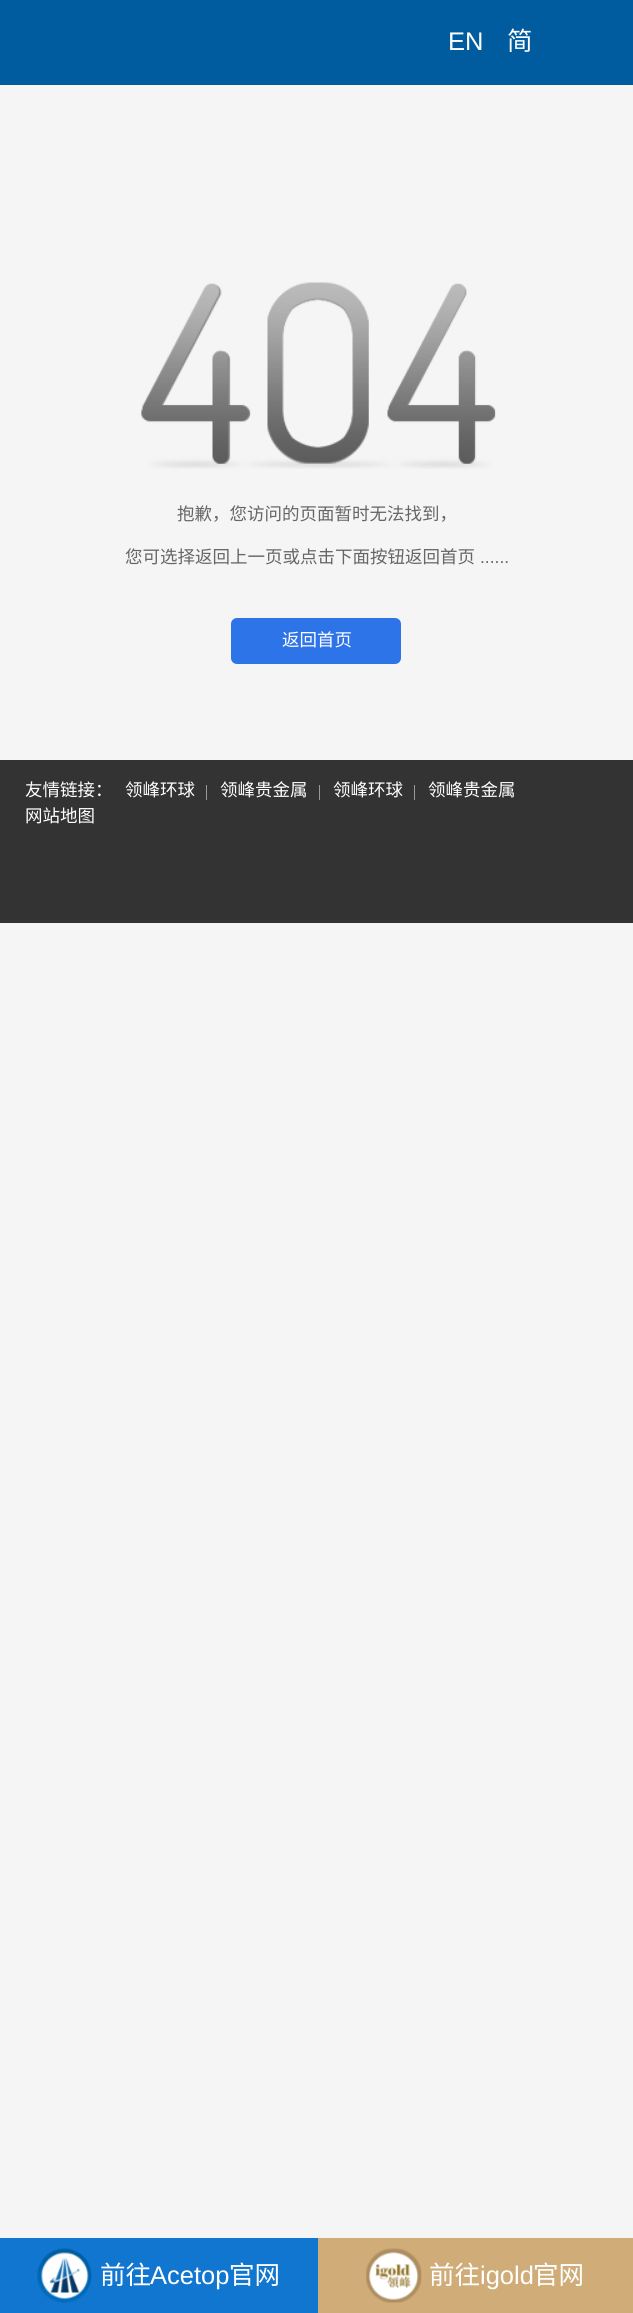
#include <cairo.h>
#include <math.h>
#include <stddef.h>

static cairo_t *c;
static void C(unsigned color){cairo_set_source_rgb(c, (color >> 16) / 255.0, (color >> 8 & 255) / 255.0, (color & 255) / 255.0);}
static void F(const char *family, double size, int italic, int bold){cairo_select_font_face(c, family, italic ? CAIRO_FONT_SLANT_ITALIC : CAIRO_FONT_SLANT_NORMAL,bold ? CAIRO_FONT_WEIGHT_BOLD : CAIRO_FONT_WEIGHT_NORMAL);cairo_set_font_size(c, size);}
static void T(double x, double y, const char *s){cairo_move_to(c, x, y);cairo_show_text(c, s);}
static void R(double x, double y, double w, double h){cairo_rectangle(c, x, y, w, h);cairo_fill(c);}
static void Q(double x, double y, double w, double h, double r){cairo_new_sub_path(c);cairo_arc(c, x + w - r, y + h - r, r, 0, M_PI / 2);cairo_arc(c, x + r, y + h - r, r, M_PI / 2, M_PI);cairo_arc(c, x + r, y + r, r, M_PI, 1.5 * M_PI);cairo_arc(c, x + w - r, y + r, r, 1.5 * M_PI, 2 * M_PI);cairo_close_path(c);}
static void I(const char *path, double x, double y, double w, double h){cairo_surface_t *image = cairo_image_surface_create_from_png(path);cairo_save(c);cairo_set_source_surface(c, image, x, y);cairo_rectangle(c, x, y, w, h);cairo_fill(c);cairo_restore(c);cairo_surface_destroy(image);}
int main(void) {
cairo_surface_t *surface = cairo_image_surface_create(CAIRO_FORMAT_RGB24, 633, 2313);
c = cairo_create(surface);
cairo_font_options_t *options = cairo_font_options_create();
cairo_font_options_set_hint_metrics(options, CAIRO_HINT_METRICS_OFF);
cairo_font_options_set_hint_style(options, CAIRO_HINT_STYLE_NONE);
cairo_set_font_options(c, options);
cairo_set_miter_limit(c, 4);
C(0xf5f5f5);
cairo_paint(c);
C(0x005c9f);
R(0,0,633,85);
F("Liberation Sans",25.5,0,0);
C(0xffffff);
T(448,50,"EN");
F("Noto Sans CJK SC",25.5,0,0);
T(507,50,"简");
I("1.png",141,282,355,187);
F("Noto Sans CJK SC",17.5,0,0);
C(0x666666);
T(177,520,"抱歉，您访问的页面暂时无法找到，");
T(125,563,"您可选择返回上一页或点击下面按钮返回首页");
F("Liberation Sans",17.5,0,0);
T(480,563,"......");
C(0x2e74e9);
Q(231,618,170,46,6);
cairo_fill(c);
F("Noto Sans CJK SC",17.5,0,0);
C(0xffffff);
T(282,646,"返回首页");
C(0x333333);
R(0,760,633,163);
C(0xffffff);
T(25,796,"友情链接：");
T(125,796,"领峰环球");
C(0x999999);
R(206,785,1,15);
C(0xffffff);
T(220,796,"领峰贵金属");
C(0x999999);
R(319,785,1,15);
C(0xffffff);
T(333,796,"领峰环球");
C(0x999999);
R(414,785,1,15);
C(0xffffff);
T(428,796,"领峰贵金属");
T(25,822,"网站地图");
C(0x1176d0);
R(0,2238,318,75);
I("2.png",37,2248,55,55);
F("Noto Sans CJK SC",25.5,0,0);
C(0xffffff);
T(100,2284,"前往");
F("Liberation Sans",25.5,0,0);
T(150,2284,"Acetop");
F("Noto Sans CJK SC",25.5,0,0);
T(229,2284,"官网");
C(0xd0ac78);
R(318,2238,315,75);
I("3.png",366,2248,56,55);
C(0xffffff);
T(429,2284,"前往");
F("Liberation Sans",25.5,0,0);
T(480,2284,"igold");
F("Noto Sans CJK SC",25.5,0,0);
T(533,2284,"官网");
cairo_surface_write_to_png(surface, "o.png");
cairo_font_options_destroy(options);
cairo_destroy(c);
cairo_surface_destroy(surface);
return 0;
}
